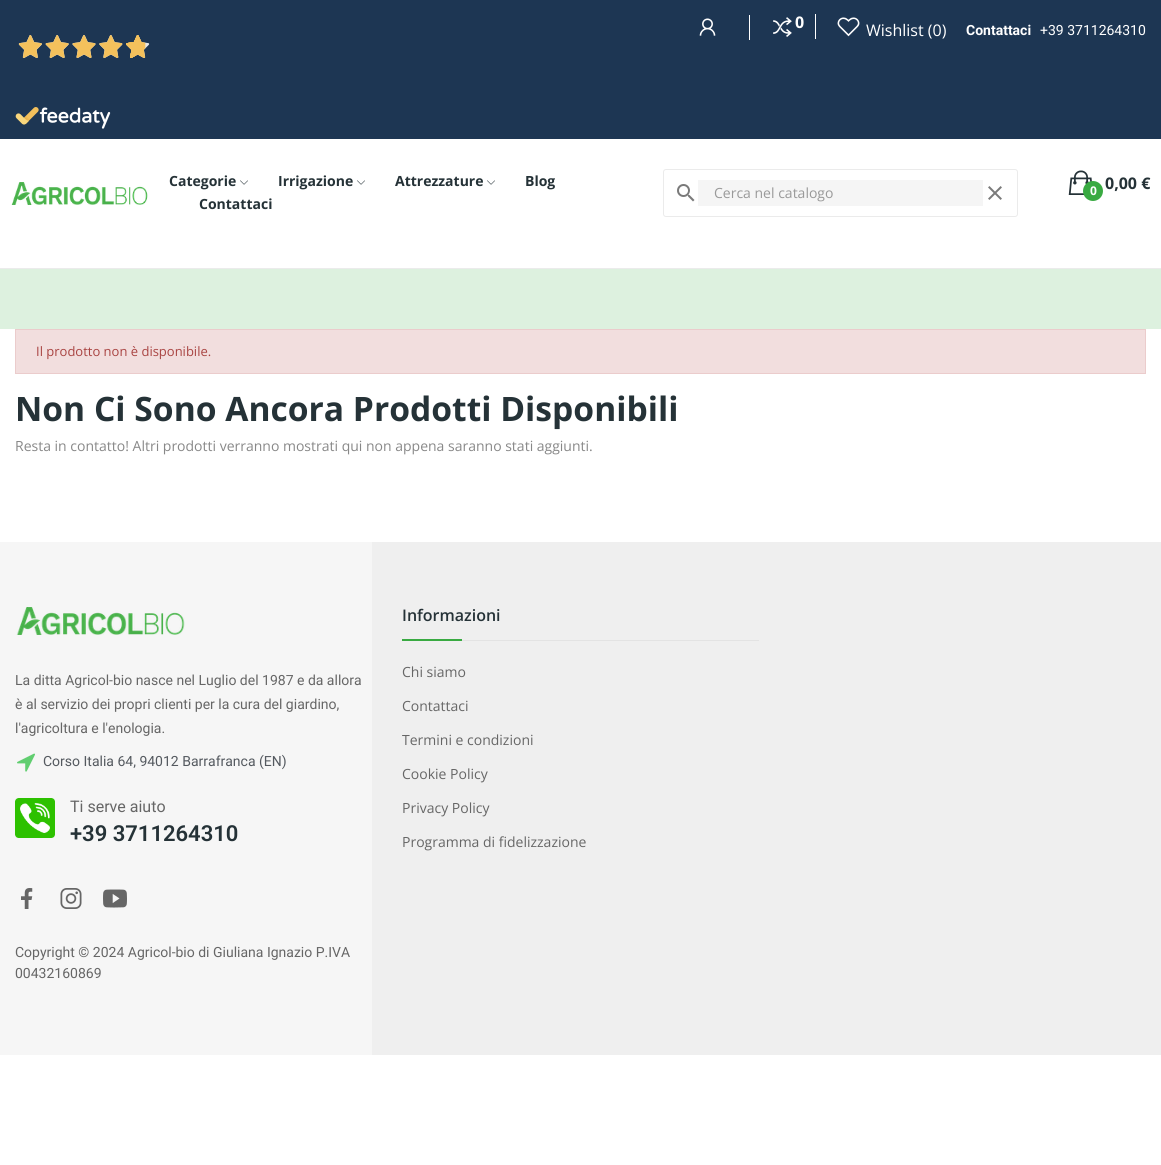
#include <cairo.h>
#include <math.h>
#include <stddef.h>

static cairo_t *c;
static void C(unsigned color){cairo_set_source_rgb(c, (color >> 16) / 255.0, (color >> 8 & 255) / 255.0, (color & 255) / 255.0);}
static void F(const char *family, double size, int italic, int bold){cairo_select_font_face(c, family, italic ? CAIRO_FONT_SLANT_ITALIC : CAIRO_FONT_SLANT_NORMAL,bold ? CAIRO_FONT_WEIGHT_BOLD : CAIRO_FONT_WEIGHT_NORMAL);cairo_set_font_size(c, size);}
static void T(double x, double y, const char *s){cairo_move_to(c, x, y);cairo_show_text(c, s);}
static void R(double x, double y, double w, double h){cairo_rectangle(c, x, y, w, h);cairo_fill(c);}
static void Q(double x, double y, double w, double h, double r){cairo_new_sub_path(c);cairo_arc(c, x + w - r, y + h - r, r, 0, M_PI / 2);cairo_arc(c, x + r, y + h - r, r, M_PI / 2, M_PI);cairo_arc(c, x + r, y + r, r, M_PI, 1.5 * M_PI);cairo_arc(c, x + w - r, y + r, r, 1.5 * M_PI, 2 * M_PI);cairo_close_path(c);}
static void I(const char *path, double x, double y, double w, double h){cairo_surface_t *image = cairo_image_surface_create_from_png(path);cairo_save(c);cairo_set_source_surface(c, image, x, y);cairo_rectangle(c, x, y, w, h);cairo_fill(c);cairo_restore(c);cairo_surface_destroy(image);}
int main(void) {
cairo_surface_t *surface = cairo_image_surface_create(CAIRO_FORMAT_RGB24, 1161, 1165);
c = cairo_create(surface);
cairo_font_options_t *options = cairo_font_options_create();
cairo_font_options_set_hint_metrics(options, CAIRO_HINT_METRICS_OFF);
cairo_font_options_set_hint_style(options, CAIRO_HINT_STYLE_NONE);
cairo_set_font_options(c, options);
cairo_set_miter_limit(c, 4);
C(0xffffff);
cairo_paint(c);
C(0xebebeb);
R(0,268,1161,1);
C(0x1d3653);
R(0,0,1161,139);
I("1.png",699,18,17,18);
C(0xffffff);
R(749,15,1,25);
I("2.png",773,17,19,20);
F("Open Sans",16,0,1);
T(795,28,"0");
R(815,14,1,25);
I("3.png",837,17,23,20);
F("Open Sans",16,0,0);
T(866,36,"Wishlist (0)");
F("Roboto",14,0,1);
T(966,35,"Contattaci");
F("Roboto",14,0,0);
T(1040,35,"+39 3711264310");
I("4.png",18,35,132,23);
I("5.png",15,107,96,22);
I("6.png",11,182,137,23);
F("Open Sans",14,0,1);
C(0x253237);
T(169,186,"Categorie");
I("7.png",240,180,8,5);
T(278,186,"Irrigazione");
I("7.png",357,180,8,5);
T(395,186,"Attrezzature");
I("7.png",487,180,8,5);
T(525,186,"Blog");
T(199,209,"Contattaci");
Q(663.5,169.5,354,47,2.5);
C(0xebebeb);
cairo_set_line_width(c,1);
cairo_stroke(c);
I("8.png",677,184,18,18);
C(0xf5f5f5);
R(698,180,285,26);
F("Open Sans",14,0,0);
C(0x999999);
T(714,198,"Cerca nel catalogo");
I("9.png",988,186,14,14);
I("10.png",1068,170,24,25);
C(0x39aa42);
cairo_arc(c,1093,191,10,0,2 * M_PI);
cairo_fill(c);
F("Open Sans",12,0,1);
C(0xffffff);
T(1090,195,"0");
F("Open Sans",16,0,1);
C(0x253237);
T(1105,189,"0,00 €");
C(0xddf1df);
R(0,269,1161,60);
C(0xf2dede);
cairo_rectangle(c,15.5,329.5,1130,44);
cairo_fill_preserve(c);
C(0xebcccc);
cairo_stroke(c);
F("Open Sans",13,0,0);
C(0xa94442);
T(36,356,"Il prodotto non è disponibile.");
F("Open Sans",33.6,0,1);
C(0x253237);
T(15,421,"Non Ci Sono Ancora Prodotti Disponibili");
F("Open Sans",14,0,0);
C(0x888888);
T(15,451,"Resta in contatto! Altri prodotti verranno mostrati qui non appena saranno stati aggiunti.");
C(0xefefef);
R(372,542,789,513);
C(0xf6f6f6);
R(0,542,372,513);
I("11.png",16,607,169,28);
F("Roboto",14,0,0);
C(0x666666);
T(15,685,"La ditta Agricol-bio nasce nel Luglio del 1987 e da allora");
T(15,709,"è al servizio dei propri clienti per la cura del giardino,");
T(15,733,"l'agricoltura e l'enologia.");
I("12.png",17,753,18,19);
C(0x54595f);
T(43,766,"Corso Italia 64, 94012 Barrafranca (EN)");
I("13.png",15,798,40,40);
F("Roboto",16,0,0);
C(0x666666);
T(70,812,"Ti serve aiuto");
F("Roboto SemiBold",22,0,0);
C(0x253237);
T(70,841,"+39 3711264310");
I("14.png",21,888,12,21);
I("15.png",60,888,22,21);
I("16.png",103,889,24,19);
C(0xe3e3e3);
R(462,640,297,1);
F("Open Sans SemiBold",16,0,0);
C(0x253237);
T(402,621,"Informazioni");
C(0x39aa42);
R(402,639,60,2);
F("Open Sans",14,0,0);
C(0x666666);
T(402,677,"Chi siamo");
T(402,711,"Contattaci");
T(402,745,"Termini e condizioni");
T(402,779,"Cookie Policy");
T(402,813,"Privacy Policy");
T(402,847,"Programma di fidelizzazione");
F("Roboto",14,0,0);
T(15,957,"Copyright © 2024 Agricol-bio di Giuliana Ignazio P.IVA");
T(15,978,"00432160869");
cairo_surface_write_to_png(surface, "o.png");
cairo_font_options_destroy(options);
cairo_destroy(c);
cairo_surface_destroy(surface);
return 0;
}
